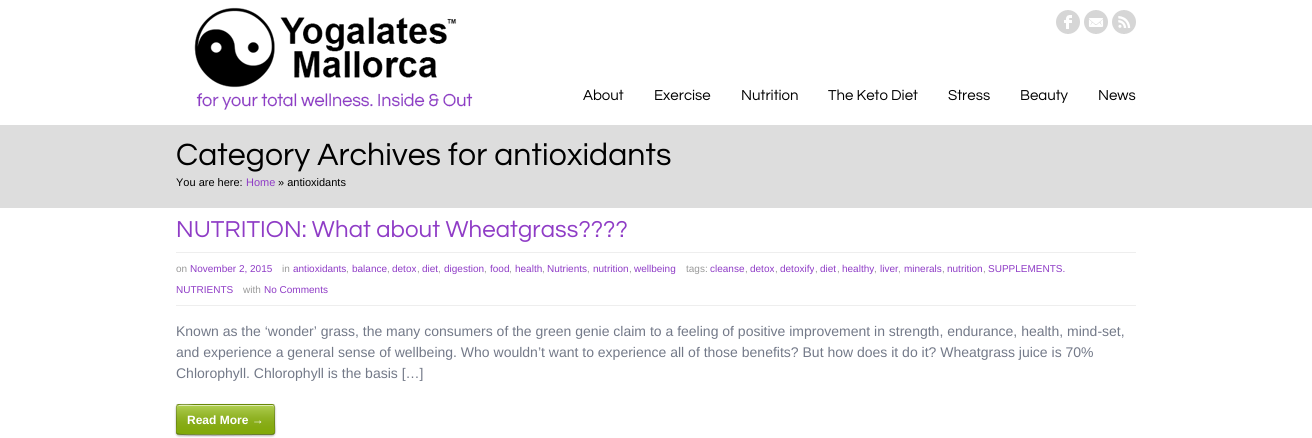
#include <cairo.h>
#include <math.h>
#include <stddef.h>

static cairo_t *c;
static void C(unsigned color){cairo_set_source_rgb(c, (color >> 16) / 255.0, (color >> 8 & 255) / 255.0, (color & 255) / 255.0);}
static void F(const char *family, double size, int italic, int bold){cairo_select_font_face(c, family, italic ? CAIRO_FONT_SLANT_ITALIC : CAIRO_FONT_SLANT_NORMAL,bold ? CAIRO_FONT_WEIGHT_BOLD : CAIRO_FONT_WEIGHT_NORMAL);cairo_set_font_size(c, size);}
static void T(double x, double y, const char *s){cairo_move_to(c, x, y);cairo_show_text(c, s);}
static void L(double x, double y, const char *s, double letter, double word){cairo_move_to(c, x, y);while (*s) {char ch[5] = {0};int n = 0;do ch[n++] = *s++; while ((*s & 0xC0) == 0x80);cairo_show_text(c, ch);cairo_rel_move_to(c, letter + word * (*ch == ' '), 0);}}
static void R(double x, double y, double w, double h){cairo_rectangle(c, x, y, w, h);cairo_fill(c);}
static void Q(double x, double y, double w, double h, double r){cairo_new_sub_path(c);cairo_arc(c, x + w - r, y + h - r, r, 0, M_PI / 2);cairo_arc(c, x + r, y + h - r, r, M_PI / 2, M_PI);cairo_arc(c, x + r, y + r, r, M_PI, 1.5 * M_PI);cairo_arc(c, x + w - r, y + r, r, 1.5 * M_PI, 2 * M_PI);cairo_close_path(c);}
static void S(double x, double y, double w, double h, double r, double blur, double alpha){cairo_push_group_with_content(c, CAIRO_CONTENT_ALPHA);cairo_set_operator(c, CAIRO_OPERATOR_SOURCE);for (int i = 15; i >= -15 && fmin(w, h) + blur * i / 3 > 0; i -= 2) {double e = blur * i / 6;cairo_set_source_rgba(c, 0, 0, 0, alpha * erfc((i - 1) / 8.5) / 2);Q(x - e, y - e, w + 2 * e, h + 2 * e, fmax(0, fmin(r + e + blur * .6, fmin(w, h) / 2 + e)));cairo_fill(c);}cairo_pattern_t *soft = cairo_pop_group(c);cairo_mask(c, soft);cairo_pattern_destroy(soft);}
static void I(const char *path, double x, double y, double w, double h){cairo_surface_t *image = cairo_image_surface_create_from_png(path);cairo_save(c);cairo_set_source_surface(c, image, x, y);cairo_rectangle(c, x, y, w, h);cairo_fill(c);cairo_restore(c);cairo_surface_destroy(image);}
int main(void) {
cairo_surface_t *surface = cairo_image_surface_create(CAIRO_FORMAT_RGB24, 1312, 438);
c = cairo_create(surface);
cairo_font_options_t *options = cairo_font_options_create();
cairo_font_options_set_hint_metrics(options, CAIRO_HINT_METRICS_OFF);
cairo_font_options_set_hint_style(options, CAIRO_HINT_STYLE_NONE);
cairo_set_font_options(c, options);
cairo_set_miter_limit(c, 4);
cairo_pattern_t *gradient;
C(0xffffff);
cairo_paint(c);
I("1.png",194,7,279,103);
I("2.png",1056,10,24,24);
I("3.png",1084,10,24,24);
I("4.png",1112,10,24,24);
F("Questrial",15,0,0);
C(0x000000);
T(583,100,"About");
T(654,100,"Exercise");
T(741,100,"Nutrition");
T(828,100,"The Keto Diet");
T(948,100,"Stress");
T(1020,100,"Beauty");
T(1098,100,"News");
C(0xdddddd);
R(0,125,1312,83);
F("Questrial",32,0,0);
C(0x000000);
L(176,165,"Category Archives for antioxidants",.1,0);
F("Liberation Sans",11,0,0);
T(176,186,"You are here:");
C(0x8f3cc6);
T(246,186,"Home");
C(0x000000);
T(278,186,"» antioxidants");
F("Questrial",24,0,0);
C(0x8f3cc6);
L(176,237,"NUTRITION: What about Wheatgrass?\077?\077",.1,0);
C(0xeeeeee);
R(176,252,960,1);
R(176,305,960,1);
F("Liberation Sans",10,0,0);
C(0x999999);
T(176,272,"on");
C(0x8f3cc6);
T(190,272,"November 2, 2015");
C(0x999999);
T(282,272,"in");
C(0x8f3cc6);
T(293,272,"antioxidants");
C(0x999999);
T(346,272,",");
C(0x8f3cc6);
T(352,272,"balance");
C(0x999999);
T(387,272,",");
C(0x8f3cc6);
T(392,272,"detox");
C(0x999999);
T(417,272,",");
C(0x8f3cc6);
T(422,272,"diet");
C(0x999999);
T(438,272,",");
C(0x8f3cc6);
T(444,272,"digestion");
C(0x999999);
T(484,272,",");
C(0x8f3cc6);
T(490,272,"food");
C(0x999999);
T(509,272,",");
C(0x8f3cc6);
T(515,272,"health");
C(0x999999);
T(542,272,",");
C(0x8f3cc6);
T(547,272,"Nutrients");
C(0x999999);
T(587,272,",");
C(0x8f3cc6);
T(593,272,"nutrition");
C(0x999999);
T(629,272,",");
C(0x8f3cc6);
T(634,272,"wellbeing");
C(0x999999);
T(686,272,"tags:");
C(0x8f3cc6);
T(710,272,"cleanse");
C(0x999999);
T(745,272,",");
C(0x8f3cc6);
T(750,272,"detox");
C(0x999999);
T(775,272,",");
C(0x8f3cc6);
T(780,272,"detoxify");
C(0x999999);
T(815,272,",");
C(0x8f3cc6);
T(820,272,"diet");
C(0x999999);
T(837,272,",");
C(0x8f3cc6);
T(842,272,"healthy");
C(0x999999);
T(874,272,",");
C(0x8f3cc6);
T(880,272,"liver");
C(0x999999);
T(898,272,",");
C(0x8f3cc6);
T(904,272,"minerals");
C(0x999999);
T(942,272,",");
C(0x8f3cc6);
T(947,272,"nutrition");
C(0x999999);
T(983,272,",");
C(0x8f3cc6);
T(988,272,"SUPPLEMENTS.");
T(176,293,"NUTRIENTS");
C(0x999999);
T(243,293,"with");
C(0x8f3cc6);
T(264,293,"No Comments");
F("Liberation Sans",14,0,0);
C(0x737988);
T(176,336,"Known as the ‘wonder’ grass, the many consumers of the green genie claim to a feeling of positive improvement in strength, endurance, health, mind-set,");
T(176,357,"and experience a general sense of wellbeing. Who wouldn’t want to experience all of those benefits? But how does it do it? Wheatgrass juice is 70%");
T(176,378,"Chlorophyll. Chlorophyll is the basis […]");
C(0x000000);
S(176,405,99,31,3,1,.3);
C(0x91bd09);
Q(176,404,99,31,3);
cairo_fill(c);
gradient = cairo_pattern_create_linear(226,376,226,405);
cairo_pattern_add_color_stop_rgba(gradient,0,1,1,1,.3);
cairo_pattern_add_color_stop_rgba(gradient,1,0,0,0,.1);
cairo_set_source(c,gradient);
cairo_pattern_destroy(gradient);
R(176,404,99,1);
gradient = cairo_pattern_create_linear(226,405,226,434);
cairo_pattern_add_color_stop_rgba(gradient,0,1,1,1,.3);
cairo_pattern_add_color_stop_rgba(gradient,1,0,0,0,.1);
cairo_set_source(c,gradient);
cairo_pattern_destroy(gradient);
R(176,405,99,29);
cairo_save(c);
Q(176,404,99,31,3);
cairo_clip(c);
gradient = cairo_pattern_create_linear(226,434,226,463);
cairo_pattern_add_color_stop_rgba(gradient,0,1,1,1,.3);
cairo_pattern_add_color_stop_rgba(gradient,1,0,0,0,.1);
cairo_set_source(c,gradient);
cairo_pattern_destroy(gradient);
R(176,434,99,1);
cairo_restore(c);
cairo_set_source_rgba(c,1,1,1,0.3);
cairo_new_path(c);
cairo_move_to(c,179,406);
cairo_line_to(c,272,406);
cairo_curve_to(c,273,406,274,407,274,408);
cairo_curve_to(c,274,407,274,405,272,405);
cairo_line_to(c,194,405);
cairo_curve_to(c,193,405,177,401,177,408);
cairo_curve_to(c,177,407,178,406,179,406);
cairo_close_path(c);
cairo_fill(c);
cairo_new_path(c);
cairo_move_to(c,274,434);
cairo_line_to(c,272,434.5);
cairo_line_to(c,256.5,434.5);
cairo_curve_to(c,248.5,434.5,179.5,435.5,177.5,434);
cairo_line_to(c,177,434);
cairo_set_source_rgba(c,0,0,0,0.4);
cairo_set_line_width(c,1);
cairo_stroke(c);
cairo_save(c);
cairo_rectangle(c,176,321,960,116);
cairo_clip(c);
cairo_new_path(c);
cairo_move_to(c,177,434);
cairo_curve_to(c,175,432,176.5,426,176.5,423.5);
cairo_line_to(c,176.5,411);
cairo_curve_to(c,176.5,409.5,175.5,404.5,179,404.5);
cairo_line_to(c,272,404.5);
cairo_curve_to(c,275.5,404.5,274.5,409.5,274.5,411);
cairo_line_to(c,274.5,423.5);
cairo_curve_to(c,274.5,426,276,432,274,434);
cairo_set_source_rgba(c,0,0,0,0.2);
cairo_stroke(c);
cairo_restore(c);
cairo_set_source_rgba(c,1,1,1,0.4);
R(179,405,94,1);
F("Liberation Sans",12,0,1);
C(0xffffff);
T(187,424,"Read More →");
cairo_surface_write_to_png(surface, "o.png");
cairo_font_options_destroy(options);
cairo_destroy(c);
cairo_surface_destroy(surface);
return 0;
}
